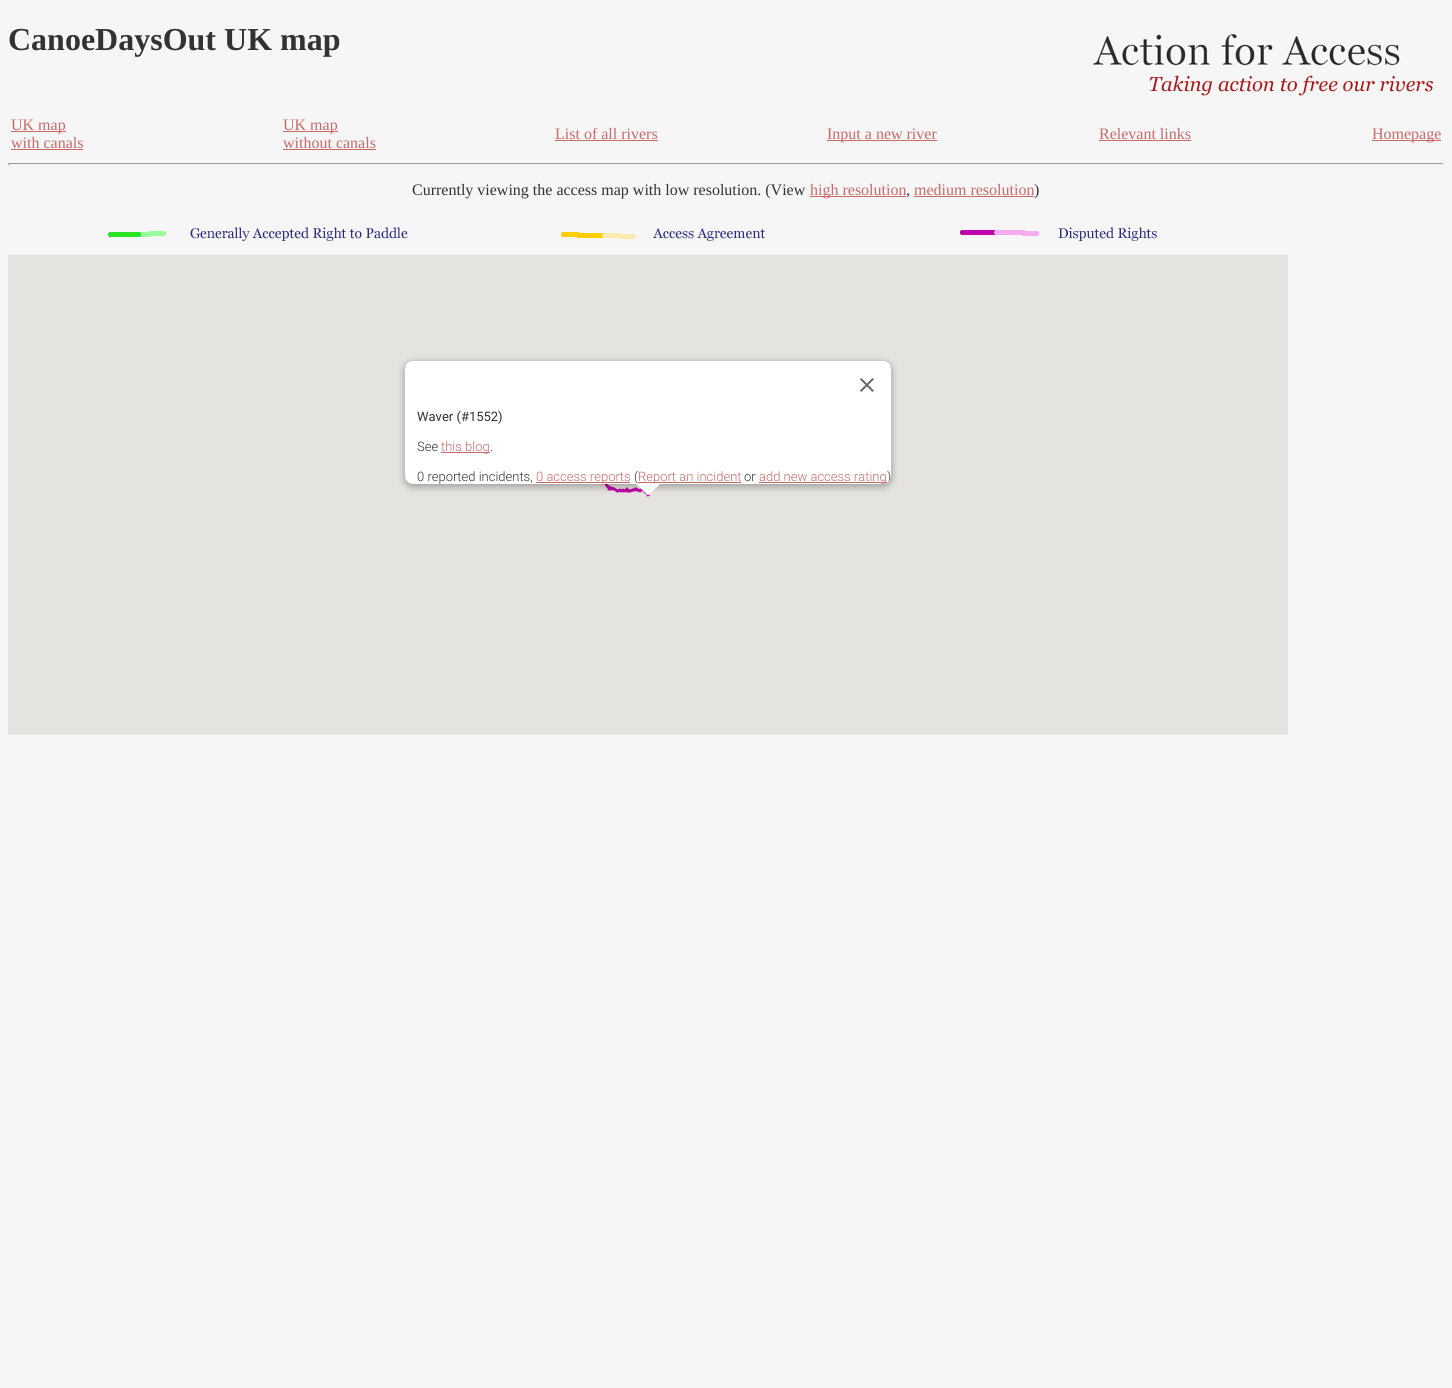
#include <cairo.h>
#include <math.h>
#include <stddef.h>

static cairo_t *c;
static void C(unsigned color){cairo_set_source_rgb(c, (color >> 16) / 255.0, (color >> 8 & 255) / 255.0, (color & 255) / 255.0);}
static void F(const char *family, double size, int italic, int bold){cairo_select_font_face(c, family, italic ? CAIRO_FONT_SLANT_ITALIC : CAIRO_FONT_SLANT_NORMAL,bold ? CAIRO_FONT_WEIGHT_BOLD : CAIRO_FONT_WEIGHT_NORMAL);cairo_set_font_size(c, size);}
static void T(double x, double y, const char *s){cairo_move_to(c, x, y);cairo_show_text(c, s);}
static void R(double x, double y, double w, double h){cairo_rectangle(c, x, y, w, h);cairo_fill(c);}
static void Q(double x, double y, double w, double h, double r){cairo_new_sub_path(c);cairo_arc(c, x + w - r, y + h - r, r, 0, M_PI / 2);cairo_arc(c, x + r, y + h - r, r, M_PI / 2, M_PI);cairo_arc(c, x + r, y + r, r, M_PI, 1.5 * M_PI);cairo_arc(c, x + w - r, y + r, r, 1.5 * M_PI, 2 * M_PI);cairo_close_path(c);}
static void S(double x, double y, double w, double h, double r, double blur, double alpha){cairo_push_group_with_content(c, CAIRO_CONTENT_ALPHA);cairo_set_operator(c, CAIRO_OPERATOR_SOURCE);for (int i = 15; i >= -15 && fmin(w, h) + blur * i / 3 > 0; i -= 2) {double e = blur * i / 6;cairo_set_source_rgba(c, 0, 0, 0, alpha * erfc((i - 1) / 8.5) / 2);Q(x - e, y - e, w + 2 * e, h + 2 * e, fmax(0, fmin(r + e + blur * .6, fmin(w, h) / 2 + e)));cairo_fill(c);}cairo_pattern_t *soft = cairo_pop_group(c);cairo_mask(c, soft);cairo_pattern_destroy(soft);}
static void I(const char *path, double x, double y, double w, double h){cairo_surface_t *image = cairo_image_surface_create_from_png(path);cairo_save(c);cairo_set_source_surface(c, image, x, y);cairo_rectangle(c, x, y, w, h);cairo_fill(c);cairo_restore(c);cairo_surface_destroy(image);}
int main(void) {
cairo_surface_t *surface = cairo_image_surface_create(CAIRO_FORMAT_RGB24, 1452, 1388);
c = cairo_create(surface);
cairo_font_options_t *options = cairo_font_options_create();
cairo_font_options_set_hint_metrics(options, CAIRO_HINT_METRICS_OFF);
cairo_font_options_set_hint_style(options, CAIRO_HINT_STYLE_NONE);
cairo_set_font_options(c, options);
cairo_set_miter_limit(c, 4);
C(0xf6f6f6);
cairo_paint(c);
F("Liberation Serif",32,0,1);
C(0x323232);
T(8,50,"CanoeDaysOut UK map");
I("1.png",1093,33,340,63);
C(0xc66a6a);
R(11,131,55,1);
F("Liberation Serif",16,0,0);
T(11,130,"UK map");
T(11,148,"with canals");
R(11,149,72,1);
R(283,131,55,1);
T(283,130,"UK map");
T(283,148,"without canals");
R(283,149,93,1);
T(555,139,"List of all rivers");
R(555,140,103,1);
R(827,140,110,1);
T(827,139,"Input a new river");
T(1099,139,"Relevant links");
R(1099,140,92,1);
R(1372,140,69,1);
T(1372,139,"Homepage");
C(0x9f9f9f);
R(8,163,1436,1);
C(0xeeeeee);
R(1443,163,1,2);
R(8,164,1436,1);
C(0x9f9f9f);
R(8,163,1,2);
C(0x323232);
T(412,195,"Currently viewing the access map with low resolution. (View");
C(0xc66a6a);
R(810,196,96,1);
T(810,195,"high resolution");
C(0x323232);
T(906,195,",");
C(0xc66a6a);
T(914,195,"medium resolution");
R(914,196,120,1);
C(0x323232);
T(1034,195,")");
I("2.png",108,227,1049,14);
C(0xe5e3df);
R(8,255,1280,480);
I("4.png",604,484,28,9);
I("5.png",632,487,18,10);
C(0x000000);
S(404,362,488,125,9,3.5,.3);
C(0xffffff);
Q(405,361,486,123,8);
cairo_fill(c);
I("3.png",860,378,14,14);
F("Roboto",13,0,0);
C(0x323232);
T(417,421,"Waver (#1552)");
F("Roboto Light",13,0,0);
T(417,451,"See");
C(0xc66a6a);
R(441,452,49,1);
T(441,451,"this blog");
C(0x323232);
T(490,451,".");
T(417,481,"0 reported incidents,");
C(0xc66a6a);
R(536,482,94,1);
T(536,481,"0 access reports");
C(0x323232);
T(634,481,"(");
C(0xc66a6a);
R(638,482,103,1);
T(638,481,"Report an incident");
C(0x323232);
T(744,481,"or");
C(0xc66a6a);
R(759,482,128,1);
T(759,481,"add new access rating");
cairo_save(c);
Q(405,361,486,123,8);
cairo_clip(c);
C(0x323232);
T(887,481,")");
cairo_restore(c);
C(0xffffff);
cairo_new_path(c);
cairo_move_to(c,636,484);
cairo_line_to(c,636,483.5);
cairo_line_to(c,660.5,483.5);
cairo_line_to(c,648.5,495);
cairo_line_to(c,647.5,495);
cairo_close_path(c);
cairo_fill(c);
cairo_surface_write_to_png(surface, "o.png");
cairo_font_options_destroy(options);
cairo_destroy(c);
cairo_surface_destroy(surface);
return 0;
}
